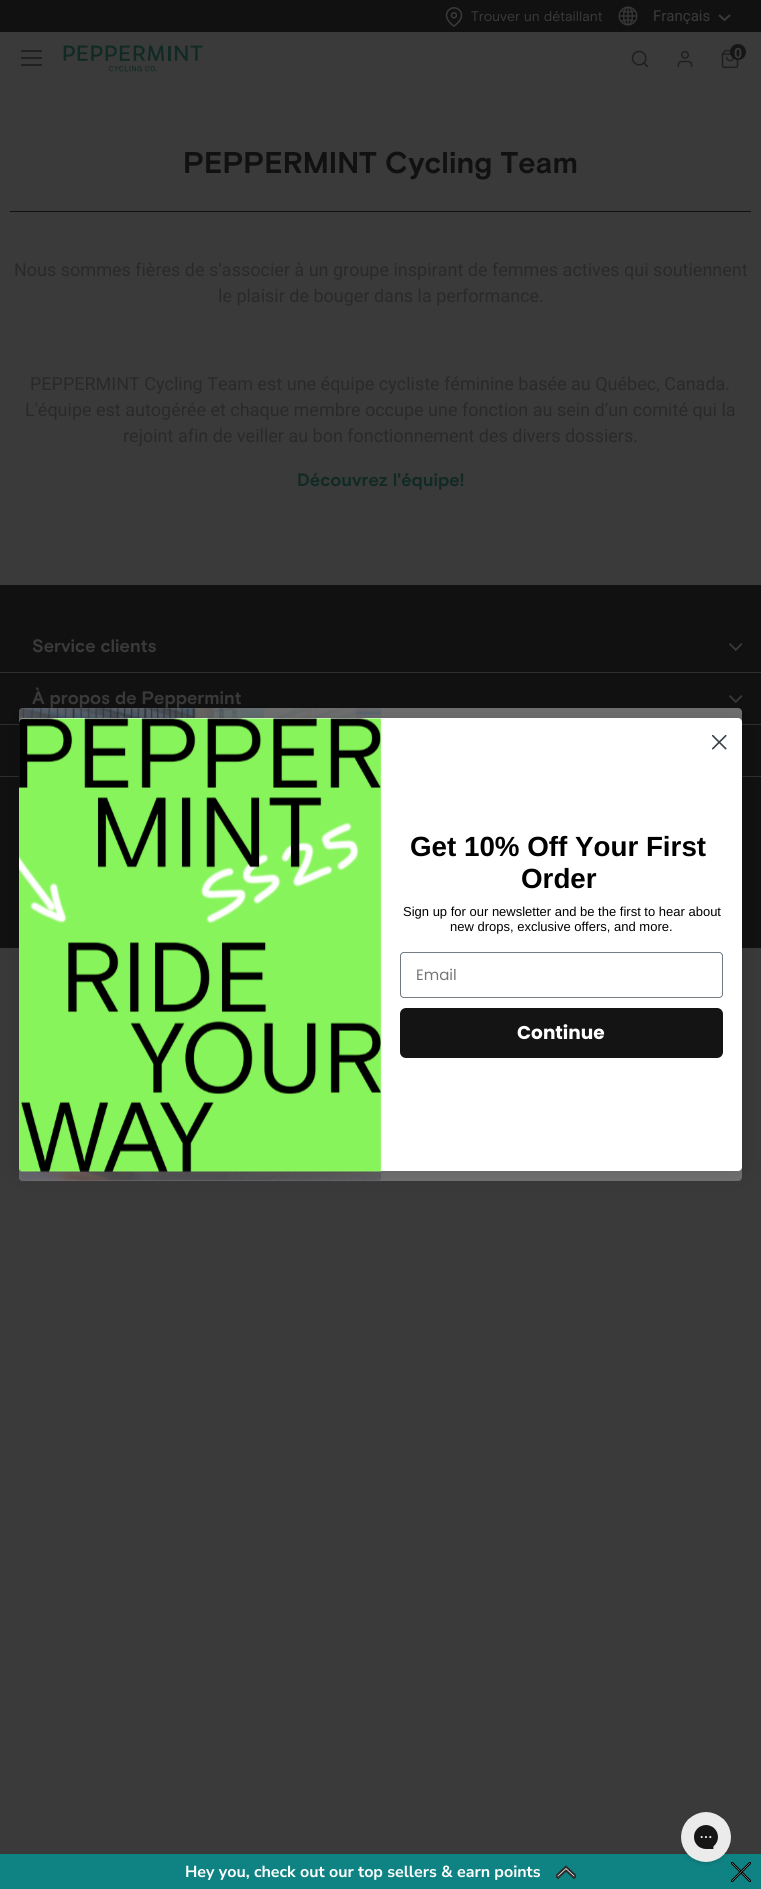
#include <cairo.h>
#include <math.h>
#include <stddef.h>

static cairo_t *c;
static void C(unsigned color){cairo_set_source_rgb(c, (color >> 16) / 255.0, (color >> 8 & 255) / 255.0, (color & 255) / 255.0);}
static void F(const char *family, double size, int italic, int bold){cairo_select_font_face(c, family, italic ? CAIRO_FONT_SLANT_ITALIC : CAIRO_FONT_SLANT_NORMAL,bold ? CAIRO_FONT_WEIGHT_BOLD : CAIRO_FONT_WEIGHT_NORMAL);cairo_set_font_size(c, size);}
static void T(double x, double y, const char *s){cairo_move_to(c, x, y);cairo_show_text(c, s);}
static void R(double x, double y, double w, double h){cairo_rectangle(c, x, y, w, h);cairo_fill(c);}
static void Q(double x, double y, double w, double h, double r){cairo_new_sub_path(c);cairo_arc(c, x + w - r, y + h - r, r, 0, M_PI / 2);cairo_arc(c, x + r, y + h - r, r, M_PI / 2, M_PI);cairo_arc(c, x + r, y + r, r, M_PI, 1.5 * M_PI);cairo_arc(c, x + w - r, y + r, r, 1.5 * M_PI, 2 * M_PI);cairo_close_path(c);}
static void S(double x, double y, double w, double h, double r, double blur, double alpha){cairo_push_group_with_content(c, CAIRO_CONTENT_ALPHA);cairo_set_operator(c, CAIRO_OPERATOR_SOURCE);for (int i = 15; i >= -15 && fmin(w, h) + blur * i / 3 > 0; i -= 2) {double e = blur * i / 6;cairo_set_source_rgba(c, 0, 0, 0, alpha * erfc((i - 1) / 8.5) / 2);Q(x - e, y - e, w + 2 * e, h + 2 * e, fmax(0, fmin(r + e + blur * .6, fmin(w, h) / 2 + e)));cairo_fill(c);}cairo_pattern_t *soft = cairo_pop_group(c);cairo_mask(c, soft);cairo_pattern_destroy(soft);}
static void I(const char *path, double x, double y, double w, double h){cairo_surface_t *image = cairo_image_surface_create_from_png(path);cairo_save(c);cairo_set_source_surface(c, image, x, y);cairo_rectangle(c, x, y, w, h);cairo_fill(c);cairo_restore(c);cairo_surface_destroy(image);}
int main(void) {
cairo_surface_t *surface = cairo_image_surface_create(CAIRO_FORMAT_RGB24, 761, 1889);
c = cairo_create(surface);
cairo_font_options_t *options = cairo_font_options_create();
cairo_font_options_set_hint_metrics(options, CAIRO_HINT_METRICS_OFF);
cairo_font_options_set_hint_style(options, CAIRO_HINT_STYLE_NONE);
cairo_set_font_options(c, options);
cairo_set_miter_limit(c, 4);
C(0x3a3a3a);
cairo_paint(c);
C(0x111111);
R(0,0,761,32);
I("1.png",445,7,18,20);
F("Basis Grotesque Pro",14,0,0);
C(0x3a3a3a);
T(471,21,"Trouver un détaillant");
I("2.png",618,6,20,20);
F("Roboto",15,0,0);
T(653,21,"Français");
cairo_new_path(c);
cairo_move_to(c,719,15);
cairo_line_to(c,724.5,20);
cairo_line_to(c,730,15);
cairo_stroke(c);
C(0x212122);
R(21,50,21,2);
R(21,57,21,2);
R(21,64,21,2);
I("3.png",63,45,140,27);
I("4.png",631,50,18,18);
I("5.png",677,50,16,18);
I("6.png",721,49,18,20);
C(0x161616);
cairo_arc(c,738,52,8,0,2 * M_PI);
cairo_fill(c);
F("Roboto",14,0,1);
C(0x3a3a3a);
T(734,58,"0");
C(0x111111);
R(10,211,741,1);
F("Basis Grotesque Pro",30,0,1);
T(183,173,"PEPPERMINT Cycling Team");
F("Roboto",18,0,0);
C(0x292929);
T(14,276,"Nous sommes fières de s’associer à un groupe inspirant de femmes actives qui soutiennent");
T(218,302,"le plaisir de bouger dans la performance.");
T(30,390,"PEPPERMINT Cycling Team est une équipe cycliste féminine basée au Québec, Canada.");
T(25,416,"L'équipe est autogérée et chaque membre occupe une fonction au sein d’un comité qui la");
T(123,442,"rejoint afin de veiller au bon fonctionnement des divers dossiers.");
F("Basis Grotesque Pro",18,0,1);
C(0x112a24);
T(297,486,"Découvrez l'équipe!");
C(0x111111);
R(0,585,761,363);
C(0x2f2f2f);
R(0,672,761,1);
C(0x3a3a3a);
T(32,652,"Service clients");
I("7.png",729,643,14,8);
C(0x2f2f2f);
R(0,724,761,1);
C(0x3a3a3a);
T(32,704,"À propos de Peppermint");
I("7.png",729,695,14,8);
C(0x2f2f2f);
R(0,776,761,1);
I("8.png",742,747,1,2);
C(0x727272);
Q(19,708,723,473,4);
cairo_fill(c);
I("9.png",19,708,363,474);
C(0x000000);
S(19,718,723,453,4,14,.15);
C(0xffffff);
Q(19,718,723,453,4);
cairo_fill(c);
I("10.png",712,734,15,16);
I("11.png",19,718,363,454);
F("Liberation Sans",27.75,0,1);
C(0x000000);
T(410,856,"Get 10% Off Your First");
T(521,888,"Order");
F("Liberation Sans",13,0,0);
T(403,916,"Sign up for our newsletter and be the first to hear about");
T(450,931,"new drops, exclusive offers, and more.");
Q(400.45,952.45,322.1,45.1,3.55);
C(0x606a72);
cairo_set_line_width(c,.9);
cairo_stroke(c);
F("Poppins",15,0,0);
C(0x767676);
T(416,980,"Email");
C(0x141414);
Q(400,1008,323,50,6);
cairo_fill(c);
F("Poppins",18.5,0,1);
C(0xffffff);
T(517,1039,"Continue");
C(0x0f8383);
R(0,1854,761,35);
I("12.png",681,1812,50,54);
F("Nunito Sans ExtraLight",16,0,0);
C(0xffffff);
T(185,1877,"Hey you, check out our top sellers & earn points");
I("13.png",556,1865,20,15);
I("14.png",731,1862,20,20);
cairo_surface_write_to_png(surface, "o.png");
cairo_font_options_destroy(options);
cairo_destroy(c);
cairo_surface_destroy(surface);
return 0;
}
